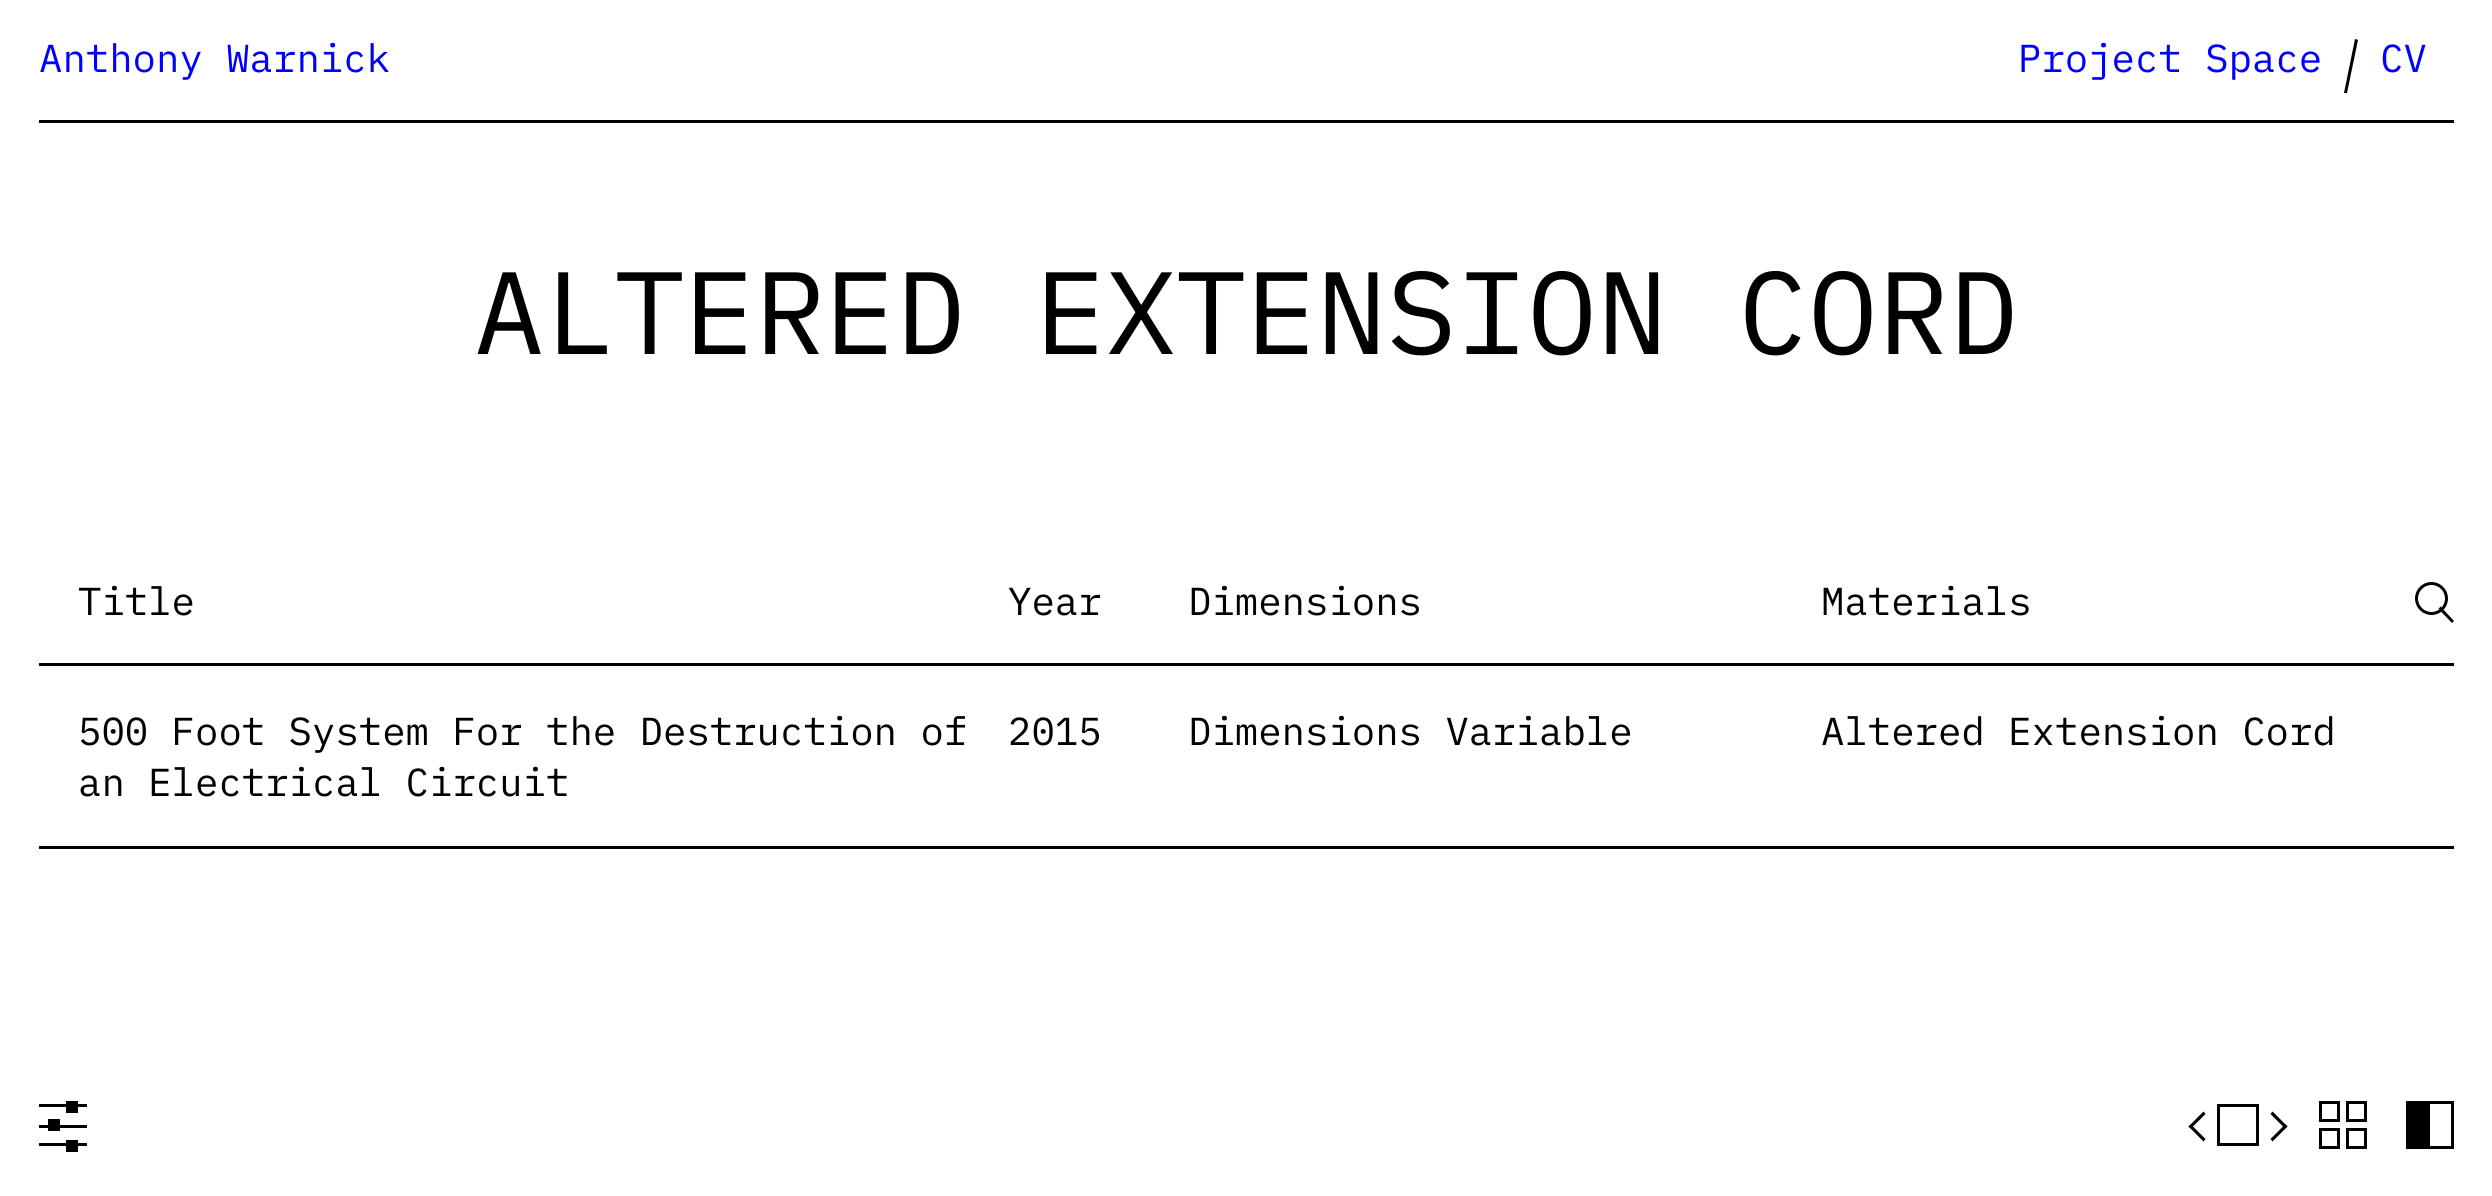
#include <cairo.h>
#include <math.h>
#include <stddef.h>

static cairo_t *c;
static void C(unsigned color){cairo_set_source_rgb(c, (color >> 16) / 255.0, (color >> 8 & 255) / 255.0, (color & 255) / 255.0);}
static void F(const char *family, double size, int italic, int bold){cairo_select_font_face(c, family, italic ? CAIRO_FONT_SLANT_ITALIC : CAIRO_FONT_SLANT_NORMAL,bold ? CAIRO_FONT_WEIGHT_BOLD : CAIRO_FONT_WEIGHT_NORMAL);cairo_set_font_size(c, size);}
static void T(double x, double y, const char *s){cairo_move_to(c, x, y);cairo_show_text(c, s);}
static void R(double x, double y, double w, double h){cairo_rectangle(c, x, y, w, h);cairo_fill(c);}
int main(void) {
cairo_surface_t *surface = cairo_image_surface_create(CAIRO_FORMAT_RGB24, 2492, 1196);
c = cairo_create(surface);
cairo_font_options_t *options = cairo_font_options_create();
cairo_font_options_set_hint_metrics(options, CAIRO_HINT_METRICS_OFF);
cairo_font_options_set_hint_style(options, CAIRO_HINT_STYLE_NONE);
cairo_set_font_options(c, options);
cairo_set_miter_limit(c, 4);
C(0xffffff);
cairo_paint(c);
C(0x000000);
R(39,120,2415,3);
F("IBM Plex Mono",39,0,0);
C(0x0000ff);
T(39,72,"Anthony Warnick");
T(2018,72,"Project Space");
C(0x000000);
cairo_new_path(c);
cairo_move_to(c,2355,39);
cairo_line_to(c,2358,40);
cairo_line_to(c,2347,93);
cairo_line_to(c,2344,93);
cairo_close_path(c);
cairo_fill(c);
C(0x0000ff);
T(2380,72,"CV");
F("IBM Plex Mono",117,0,0);
C(0x000000);
T(474,354,"ALTERED EXTENSION CORD");
R(39,663,2415,3);
F("IBM Plex Mono",39,0,0);
T(78,615,"Title");
T(1008,615,"Year");
T(1188,615,"Dimensions");
T(1821,615,"Materials");
cairo_new_path(c);
cairo_move_to(c,2438.5,609);
cairo_line_to(c,2440.5,606.5);
cairo_line_to(c,2454,621);
cairo_line_to(c,2452,623);
cairo_close_path(c);
cairo_fill(c);
cairo_arc(c,2431.5,598.5,15,0,2 * M_PI);
cairo_set_line_width(c,3);
cairo_stroke(c);
R(39,846,2415,3);
T(78,745,"500 Foot System For the Destruction of");
T(78,796,"an Electrical Circuit");
T(1008,745,"2015");
T(1188,745,"Dimensions Variable");
T(1821,745,"Altered Extension Cord");
R(39,1104,48,3);
R(66,1101,12,12);
R(39,1125,48,3);
R(48,1119,12,12);
R(39,1143,48,3);
R(66,1140,12,12);
cairo_rectangle(c,2218.5,1105.5,39,39);
cairo_stroke(c);
cairo_new_path(c);
cairo_move_to(c,2188.5,1126.5);
cairo_line_to(c,2203.5,1111.5);
cairo_line_to(c,2205.5,1114);
cairo_line_to(c,2191,1128.5);
cairo_close_path(c);
cairo_fill(c);
cairo_new_path(c);
cairo_move_to(c,2188.5,1126.5);
cairo_line_to(c,2191,1124.5);
cairo_line_to(c,2205.5,1139);
cairo_line_to(c,2203.5,1141.5);
cairo_close_path(c);
cairo_fill(c);
cairo_new_path(c);
cairo_move_to(c,2270.5,1114);
cairo_line_to(c,2272.5,1111.5);
cairo_line_to(c,2287.5,1126.5);
cairo_line_to(c,2285,1128.5);
cairo_close_path(c);
cairo_fill(c);
cairo_new_path(c);
cairo_move_to(c,2270.5,1139);
cairo_line_to(c,2285,1124.5);
cairo_line_to(c,2287.5,1126.5);
cairo_line_to(c,2272.5,1141.5);
cairo_close_path(c);
cairo_fill(c);
cairo_rectangle(c,2320.5,1102.5,18,18);
cairo_stroke(c);
cairo_rectangle(c,2347.5,1102.5,18,18);
cairo_stroke(c);
cairo_rectangle(c,2320.5,1129.5,18,18);
cairo_stroke(c);
cairo_rectangle(c,2347.5,1129.5,18,18);
cairo_stroke(c);
cairo_rectangle(c,2407.5,1102.5,45,45);
cairo_stroke(c);
R(2409,1104,21,42);
cairo_surface_write_to_png(surface, "o.png");
cairo_font_options_destroy(options);
cairo_destroy(c);
cairo_surface_destroy(surface);
return 0;
}
